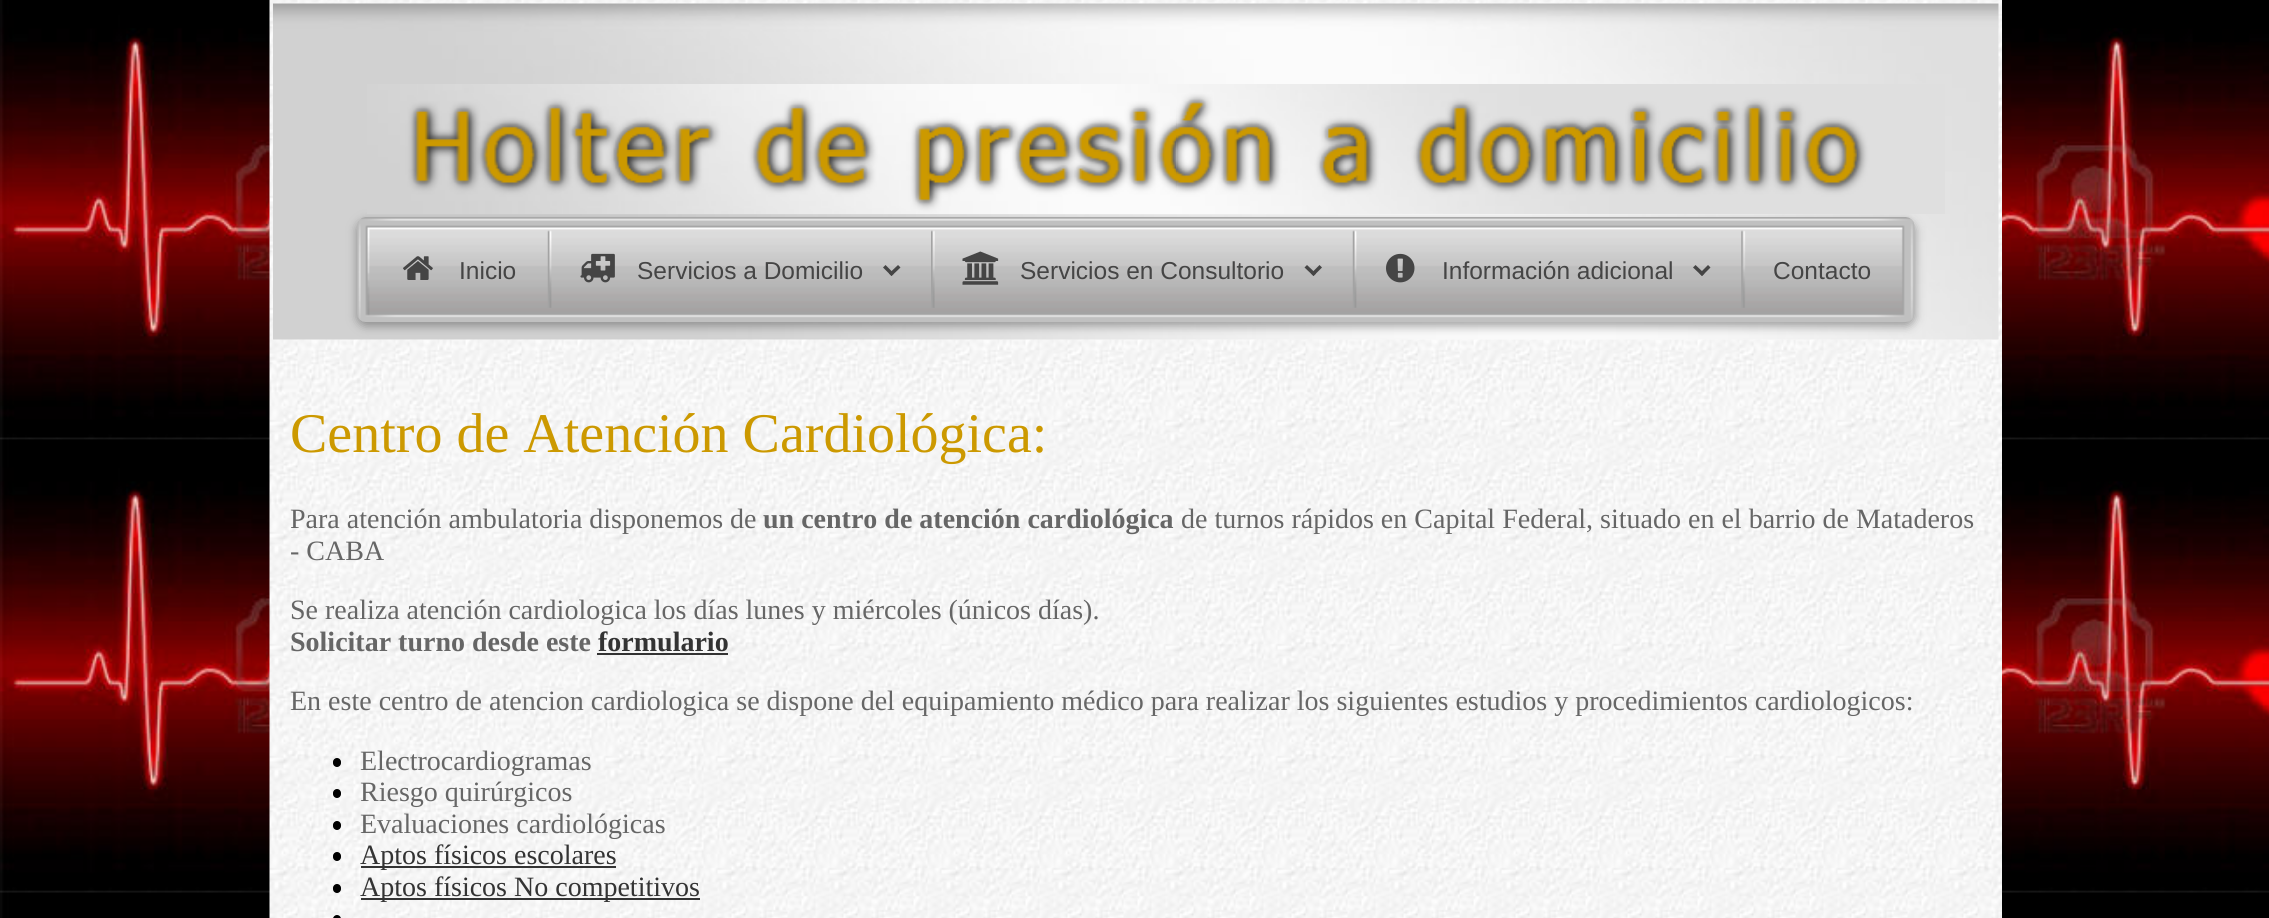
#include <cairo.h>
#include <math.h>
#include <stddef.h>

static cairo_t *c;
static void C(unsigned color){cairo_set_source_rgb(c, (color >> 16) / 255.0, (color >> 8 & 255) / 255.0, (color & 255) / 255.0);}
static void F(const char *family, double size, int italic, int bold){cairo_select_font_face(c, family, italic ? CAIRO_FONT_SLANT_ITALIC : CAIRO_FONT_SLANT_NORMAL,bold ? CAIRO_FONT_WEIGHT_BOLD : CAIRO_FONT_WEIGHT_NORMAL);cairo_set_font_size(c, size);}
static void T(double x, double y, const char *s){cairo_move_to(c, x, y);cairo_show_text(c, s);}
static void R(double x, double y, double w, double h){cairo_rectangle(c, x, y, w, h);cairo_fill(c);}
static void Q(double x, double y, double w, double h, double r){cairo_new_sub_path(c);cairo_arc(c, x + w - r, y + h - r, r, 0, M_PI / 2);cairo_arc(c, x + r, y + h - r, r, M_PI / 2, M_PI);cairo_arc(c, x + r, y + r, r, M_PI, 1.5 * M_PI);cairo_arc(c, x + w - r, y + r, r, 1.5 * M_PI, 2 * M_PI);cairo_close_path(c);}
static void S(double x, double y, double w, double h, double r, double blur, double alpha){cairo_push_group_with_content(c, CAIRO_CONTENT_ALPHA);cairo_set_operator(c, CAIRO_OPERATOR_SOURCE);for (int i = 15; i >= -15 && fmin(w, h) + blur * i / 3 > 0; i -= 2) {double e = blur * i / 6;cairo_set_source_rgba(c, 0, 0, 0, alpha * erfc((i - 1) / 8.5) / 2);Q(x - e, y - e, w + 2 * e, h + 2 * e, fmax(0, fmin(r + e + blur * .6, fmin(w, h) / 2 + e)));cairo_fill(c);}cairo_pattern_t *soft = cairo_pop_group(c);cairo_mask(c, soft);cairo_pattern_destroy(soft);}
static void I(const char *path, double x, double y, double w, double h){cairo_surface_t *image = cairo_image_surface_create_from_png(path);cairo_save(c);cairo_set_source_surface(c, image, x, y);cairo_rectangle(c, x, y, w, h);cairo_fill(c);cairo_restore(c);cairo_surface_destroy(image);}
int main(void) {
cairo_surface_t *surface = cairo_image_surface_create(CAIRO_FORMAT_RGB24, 2269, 918);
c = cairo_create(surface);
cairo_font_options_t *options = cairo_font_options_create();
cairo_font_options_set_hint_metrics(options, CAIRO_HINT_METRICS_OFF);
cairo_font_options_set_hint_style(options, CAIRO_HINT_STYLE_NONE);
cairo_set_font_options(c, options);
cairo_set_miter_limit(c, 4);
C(0xffffff);
cairo_paint(c);
I("1.png",0,0,2269,918);
I("2.png",269,0,1733,918);
I("3.png",273,3,1726,337);
C(0x555555);
S(357,221,1558,105,9,5,.55);
I("4.png",367,84,1578,130);
I("5.png",357,217,1558,105);
I("6.png",403,256,30,24);
F("Liberation Sans",24.5,0,0);
C(0x454545);
T(459,279,"Inicio");
I("7.png",547,230,5,78);
I("8.png",580,253,35,30);
T(637,279,"Servicios a Domicilio");
cairo_new_path(c);
cairo_move_to(c,898,265);
cairo_line_to(c,900.5,267.5);
cairo_line_to(c,891.5,276);
cairo_line_to(c,889,273.5);
cairo_close_path(c);
cairo_fill(c);
cairo_new_path(c);
cairo_move_to(c,885.5,265);
cairo_line_to(c,894,273.5);
cairo_line_to(c,891.5,276);
cairo_line_to(c,883,267.5);
cairo_close_path(c);
cairo_fill(c);
I("9.png",931,230,4,78);
I("10.png",962,251,37,34);
T(1020,279,"Servicios en Consultorio");
cairo_new_path(c);
cairo_move_to(c,1319.5,265);
cairo_line_to(c,1322,267.5);
cairo_line_to(c,1313.5,276);
cairo_line_to(c,1311,273.5);
cairo_close_path(c);
cairo_fill(c);
cairo_new_path(c);
cairo_move_to(c,1307,265);
cairo_line_to(c,1316,273.5);
cairo_line_to(c,1313.5,276);
cairo_line_to(c,1304.5,267.5);
cairo_close_path(c);
cairo_fill(c);
I("11.png",1352,230,5,78);
I("12.png",1386,253,29,30);
T(1442,279,"Información adicional");
cairo_new_path(c);
cairo_move_to(c,1708,265);
cairo_line_to(c,1710.5,267.5);
cairo_line_to(c,1702,276);
cairo_line_to(c,1699.5,273.5);
cairo_close_path(c);
cairo_fill(c);
cairo_new_path(c);
cairo_move_to(c,1695.5,265);
cairo_line_to(c,1704.5,273.5);
cairo_line_to(c,1702,276);
cairo_line_to(c,1693,267.5);
cairo_close_path(c);
cairo_fill(c);
I("13.png",1741,230,5,78);
T(1773,279,"Contacto");
F("Liberation Serif",56,0,0);
C(0xcc9900);
T(290,452,"Centro de Atención Cardiológica:");
F("Liberation Serif",28,0,0);
C(0x666666);
T(290,528,"Para atención ambulatoria disponemos de");
F("Liberation Serif",28,0,1);
T(763,528,"un centro de atención cardiológica");
F("Liberation Serif",28,0,0);
T(1181,528,"de turnos rápidos en Capital Federal, situado en el barrio de Mataderos");
T(290,560,"- CABA");
T(290,619,"Se realiza atención cardiologica los días lunes y miércoles (únicos días).");
F("Liberation Serif",28,0,1);
T(290,651,"Solicitar turno desde este");
C(0x333333);
T(598,651,"formulario");
R(597,653,131,2);
F("Liberation Serif",28,0,0);
C(0x666666);
T(290,710,"En este centro de atencion cardiologica se dispone del equipamiento médico para realizar los siguientes estudios y procedimientos cardiologicos:");
C(0x000000);
Q(333,758,8,9,4);
cairo_fill(c);
C(0x666666);
T(360,770,"Electrocardiogramas");
C(0x000000);
Q(333,789,8,9,4);
cairo_fill(c);
C(0x666666);
T(360,801,"Riesgo quirúrgicos");
C(0x000000);
Q(333,821,8,9,4);
cairo_fill(c);
C(0x666666);
T(360,833,"Evaluaciones cardiológicas");
C(0x000000);
Q(333,852,8,9,4);
cairo_fill(c);
C(0x333333);
R(361,866,255,2);
T(360,864,"Aptos físicos escolares");
C(0x000000);
Q(333,884,8,9,4);
cairo_fill(c);
C(0x333333);
R(361,898,339,2);
T(360,896,"Aptos físicos No competitivos");
C(0x000000);
Q(333,915,8,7,4);
cairo_fill(c);
cairo_surface_write_to_png(surface, "o.png");
cairo_font_options_destroy(options);
cairo_destroy(c);
cairo_surface_destroy(surface);
return 0;
}
